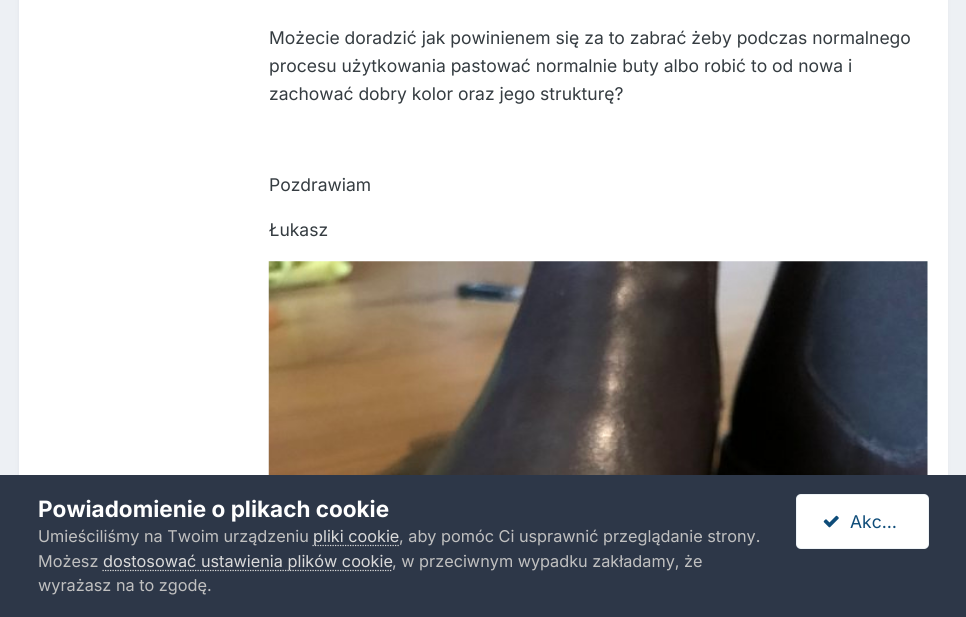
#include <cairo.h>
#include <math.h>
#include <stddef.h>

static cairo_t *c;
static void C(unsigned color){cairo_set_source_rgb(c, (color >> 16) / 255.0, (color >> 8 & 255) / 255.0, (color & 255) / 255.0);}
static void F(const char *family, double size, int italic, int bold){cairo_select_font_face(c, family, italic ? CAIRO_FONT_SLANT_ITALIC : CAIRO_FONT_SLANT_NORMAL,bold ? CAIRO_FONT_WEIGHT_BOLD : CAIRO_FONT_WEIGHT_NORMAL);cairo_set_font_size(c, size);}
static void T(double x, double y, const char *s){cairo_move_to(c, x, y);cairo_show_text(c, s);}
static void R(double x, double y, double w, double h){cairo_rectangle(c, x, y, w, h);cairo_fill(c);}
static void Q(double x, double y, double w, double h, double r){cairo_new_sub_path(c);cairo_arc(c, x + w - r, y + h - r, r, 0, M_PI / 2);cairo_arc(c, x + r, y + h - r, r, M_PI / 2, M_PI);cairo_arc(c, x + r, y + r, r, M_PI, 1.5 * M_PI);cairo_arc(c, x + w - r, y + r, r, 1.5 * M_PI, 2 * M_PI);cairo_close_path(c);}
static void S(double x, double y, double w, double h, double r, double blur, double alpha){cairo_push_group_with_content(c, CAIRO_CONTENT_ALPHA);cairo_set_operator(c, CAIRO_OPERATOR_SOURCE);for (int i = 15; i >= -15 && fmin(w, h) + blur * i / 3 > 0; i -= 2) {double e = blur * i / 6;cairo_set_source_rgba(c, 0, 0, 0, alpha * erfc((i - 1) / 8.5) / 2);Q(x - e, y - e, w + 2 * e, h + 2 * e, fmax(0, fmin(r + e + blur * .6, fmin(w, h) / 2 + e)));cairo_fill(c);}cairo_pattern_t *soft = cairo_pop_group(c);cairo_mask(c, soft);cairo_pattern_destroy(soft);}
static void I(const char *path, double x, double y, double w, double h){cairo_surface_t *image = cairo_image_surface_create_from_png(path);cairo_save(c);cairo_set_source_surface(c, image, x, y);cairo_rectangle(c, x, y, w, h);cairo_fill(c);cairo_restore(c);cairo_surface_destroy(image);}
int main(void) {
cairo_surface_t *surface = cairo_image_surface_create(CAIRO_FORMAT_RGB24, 966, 617);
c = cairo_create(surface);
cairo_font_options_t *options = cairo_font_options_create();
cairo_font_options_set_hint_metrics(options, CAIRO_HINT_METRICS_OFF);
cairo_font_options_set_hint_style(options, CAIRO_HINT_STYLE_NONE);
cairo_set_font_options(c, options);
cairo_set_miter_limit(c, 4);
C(0xedf0f4);
cairo_paint(c);
C(0x2d3748);
S(20,-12,926,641,4,2.5,.1);
C(0xffffff);
R(19,0,929,475);
F("Inter",17.5,0,0);
C(0x353c41);
T(269,44,"Możecie doradzić jak powinienem się za to zabrać żeby podczas normalnego");
T(269,72,"procesu użytkowania pastować normalnie buty albo robić to od nowa i");
T(269,100,"zachować dobry kolor oraz jego strukturę?");
T(269,191,"Pozdrawiam");
T(269,236,"Łukasz");
I("1.png",268,261,660,214);
C(0x2d3748);
R(0,475,966,142);
F("Inter",22.5,0,1);
C(0xffffff);
T(38,517,"Powiadomienie o plikach cookie");
F("Inter",16.25,0,0);
C(0xc0c0c0);
T(38,542,"Umieściliśmy na Twoim urządzeniu");
cairo_new_path(c);
cairo_move_to(c,312.5,545.5);
cairo_line_to(c,399,545.5);
C(0xdadada);
cairo_set_line_width(c,1.2);
cairo_set_dash(c,(double[]){1.25,1.25},2,0);
cairo_stroke(c);
T(313,542,"pliki cookie");
C(0xc0c0c0);
T(399,542,", aby pomóc Ci usprawnić przeglądanie strony.");
T(38,567,"Możesz");
cairo_new_path(c);
cairo_move_to(c,102.5,570.5);
cairo_line_to(c,392.5,570.5);
C(0xdadada);
cairo_stroke(c);
T(103,567,"dostosować ustawienia plików cookie");
C(0xc0c0c0);
T(392,567,", w przeciwnym wypadku zakładamy, że");
T(38,591,"wyrażasz na to zgodę.");
C(0xffffff);
Q(796,494,133,55,5);
cairo_fill(c);
Q(796.5,494.5,132,54,4.5);
cairo_set_source_rgba(c,0.055,0.298,0.475,0.07);
cairo_set_line_width(c,1);
cairo_set_dash(c,NULL,0,0);
cairo_stroke(c);
I("2.png",823,515,16,13);
F("Inter",17.5,0,0);
C(0x0e4c79);
T(850,528,"Akc…");
cairo_surface_write_to_png(surface, "o.png");
cairo_font_options_destroy(options);
cairo_destroy(c);
cairo_surface_destroy(surface);
return 0;
}
